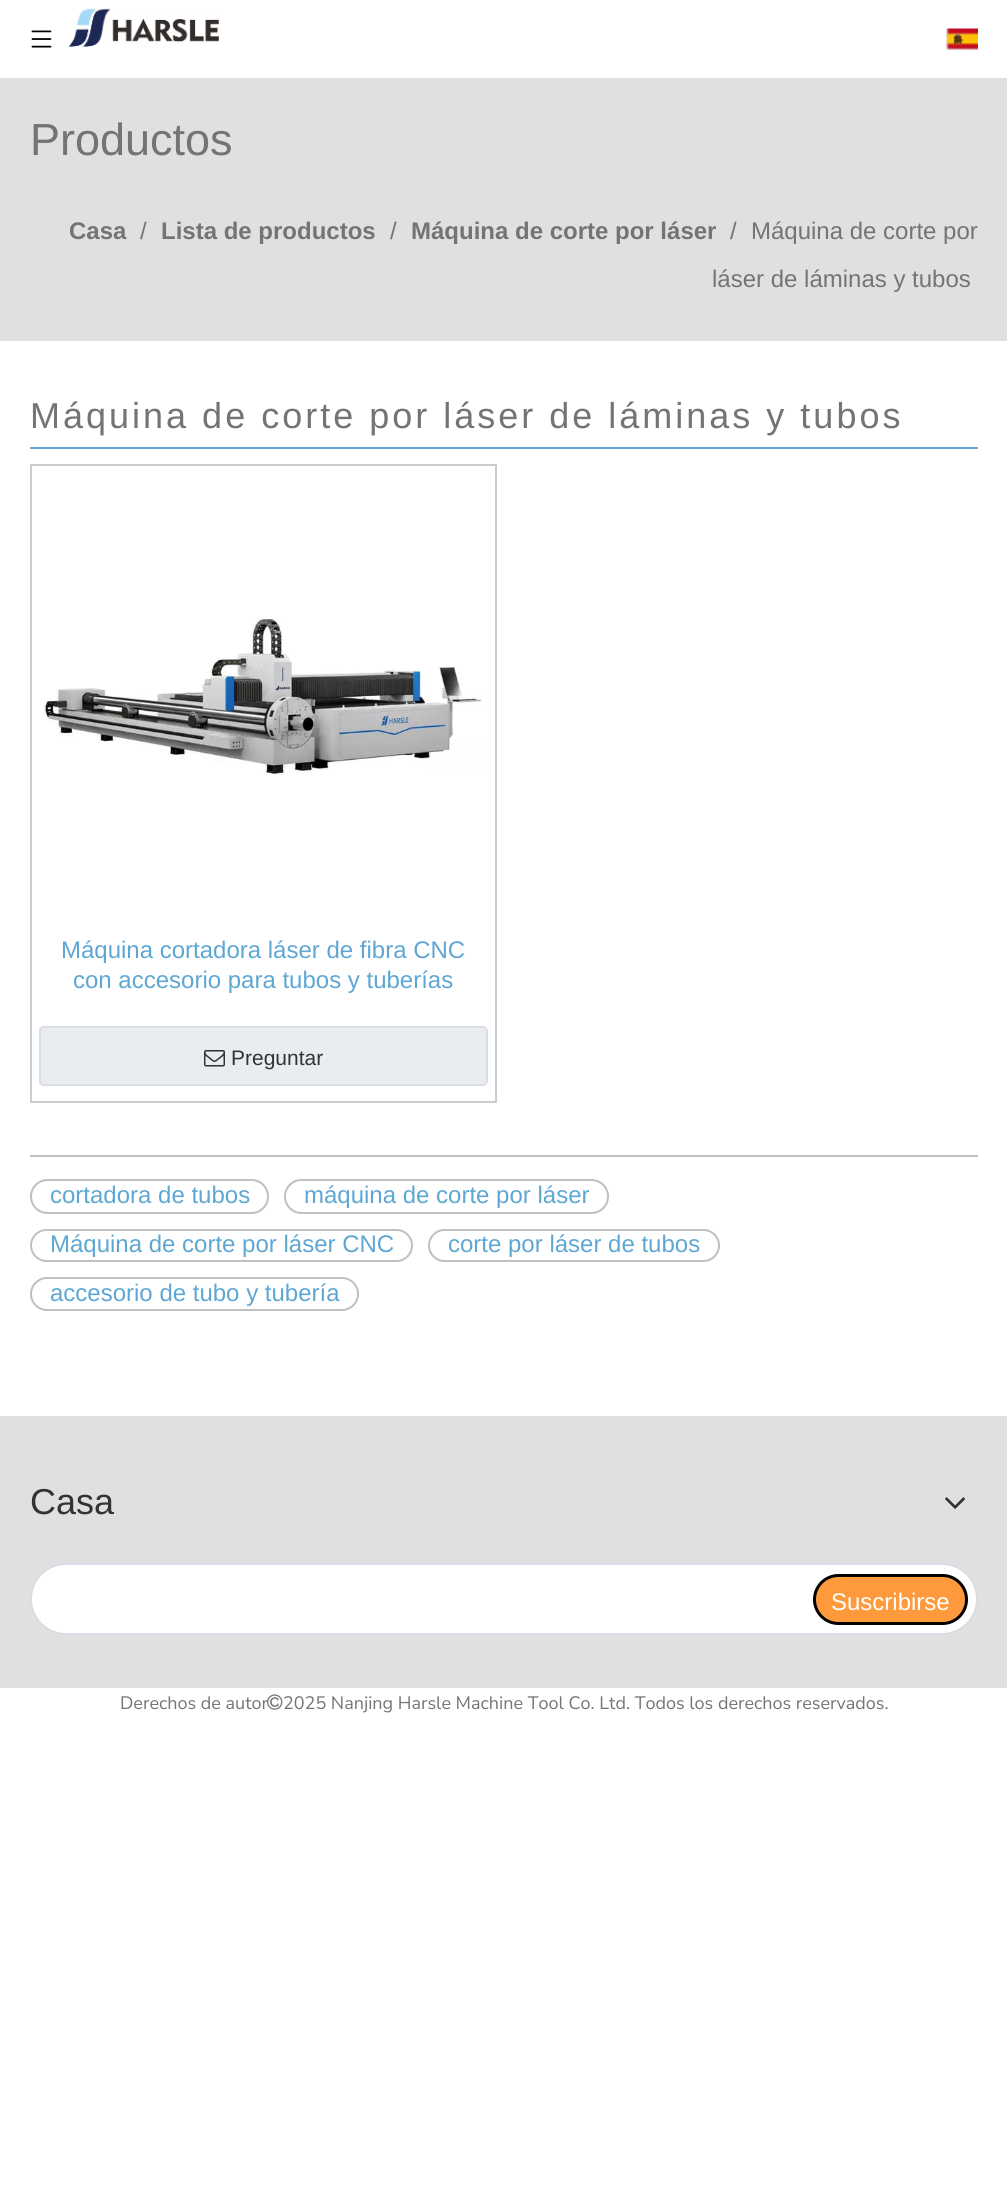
#include <cairo.h>
#include <math.h>
#include <stddef.h>

static cairo_t *c;
static void C(unsigned color){cairo_set_source_rgb(c, (color >> 16) / 255.0, (color >> 8 & 255) / 255.0, (color & 255) / 255.0);}
static void F(const char *family, double size, int italic, int bold){cairo_select_font_face(c, family, italic ? CAIRO_FONT_SLANT_ITALIC : CAIRO_FONT_SLANT_NORMAL,bold ? CAIRO_FONT_WEIGHT_BOLD : CAIRO_FONT_WEIGHT_NORMAL);cairo_set_font_size(c, size);}
static void T(double x, double y, const char *s){cairo_move_to(c, x, y);cairo_show_text(c, s);}
static void L(double x, double y, const char *s, double letter, double word){cairo_move_to(c, x, y);while (*s) {char ch[5] = {0};int n = 0;do ch[n++] = *s++; while ((*s & 0xC0) == 0x80);cairo_show_text(c, ch);cairo_rel_move_to(c, letter + word * (*ch == ' '), 0);}}
static void R(double x, double y, double w, double h){cairo_rectangle(c, x, y, w, h);cairo_fill(c);}
static void Q(double x, double y, double w, double h, double r){cairo_new_sub_path(c);cairo_arc(c, x + w - r, y + h - r, r, 0, M_PI / 2);cairo_arc(c, x + r, y + h - r, r, M_PI / 2, M_PI);cairo_arc(c, x + r, y + r, r, M_PI, 1.5 * M_PI);cairo_arc(c, x + w - r, y + r, r, 1.5 * M_PI, 2 * M_PI);cairo_close_path(c);}
static void I(const char *path, double x, double y, double w, double h){cairo_surface_t *image = cairo_image_surface_create_from_png(path);cairo_save(c);cairo_set_source_surface(c, image, x, y);cairo_rectangle(c, x, y, w, h);cairo_fill(c);cairo_restore(c);cairo_surface_destroy(image);}
int main(void) {
cairo_surface_t *surface = cairo_image_surface_create(CAIRO_FORMAT_RGB24, 1007, 2186);
c = cairo_create(surface);
cairo_font_options_t *options = cairo_font_options_create();
cairo_font_options_set_hint_metrics(options, CAIRO_HINT_METRICS_OFF);
cairo_font_options_set_hint_style(options, CAIRO_HINT_STYLE_NONE);
cairo_set_font_options(c, options);
cairo_set_miter_limit(c, 4);
C(0xffffff);
cairo_paint(c);
I("1.png",31,30,21,18);
I("2.png",69,8,150,39);
I("3.png",946,28,32,22);
C(0xe0e0e0);
R(0,78,1007,263);
F("Liberation Sans",45,0,0);
C(0x747474);
T(30,155,"Productos");
F("Liberation Sans",24,0,1);
T(69,239,"Casa");
F("Liberation Sans",24,0,0);
T(140,239,"/");
F("Liberation Sans",24,0,1);
T(161,239,"Lista de productos");
F("Liberation Sans",24,0,0);
T(390,239,"/");
F("Liberation Sans",24,0,1);
T(411,239,"Máquina de corte por láser");
F("Liberation Sans",24,0,0);
T(730,239,"/");
T(751,239,"Máquina de corte por");
T(712,287,"láser de láminas y tubos");
C(0x5ea7d3);
R(30,447,948,2);
F("Liberation Sans",36,0,0);
C(0x747474);
L(30,428,"Máquina de corte por láser de láminas y tubos",3,0);
cairo_rectangle(c,31,465,465,637);
C(0xcccccc);
cairo_stroke(c);
I("4.png",43,618,439,158);
F("Liberation Sans",24,0,0);
C(0x5ea7d3);
T(61,958,"Máquina cortadora láser de fibra CNC");
T(73,988,"con accesorio para tubos y tuberías");
C(0xeaedef);
Q(40,1027,447,58,4);
cairo_fill_preserve(c);
C(0xd8dde6);
cairo_stroke(c);
I("5.png",204,1050,21,17);
F("Liberation Sans",21,0,0);
C(0x333333);
T(231,1065,"Preguntar");
C(0xc0c0c0);
R(30,1155,948,2);
Q(31,1180,237,33,16.5);
cairo_stroke(c);
F("Liberation Sans",24,0,0);
C(0x5ea7d3);
T(50,1203,"cortadora de tubos");
Q(285,1180,323,33,16.5);
C(0xc0c0c0);
cairo_stroke(c);
C(0x5ea7d3);
T(304,1203,"máquina de corte por láser");
Q(31,1230,381,31,15.5);
C(0xc0c0c0);
cairo_stroke(c);
C(0x5ea7d3);
T(50,1252,"Máquina de corte por láser CNC");
Q(429,1230,290,31,15.5);
C(0xc0c0c0);
cairo_stroke(c);
C(0x5ea7d3);
T(448,1252,"corte por láser de tubos");
Q(31,1278,327,32,16);
C(0xc0c0c0);
cairo_stroke(c);
C(0x5ea7d3);
T(50,1301,"accesorio de tubo y tubería");
C(0xe0e0e0);
R(0,1416,1007,272);
F("Liberation Sans",36,0,0);
C(0x333333);
T(30,1514,"Casa");
I("6.png",945,1497,20,12);
C(0xffffff);
Q(31,1564,946,70,35);
cairo_fill_preserve(c);
C(0xd8dde6);
cairo_stroke(c);
C(0xff9a3c);
Q(814.5,1575.5,152,48,24);
cairo_fill_preserve(c);
C(0x000000);
cairo_set_line_width(c,3);
cairo_stroke(c);
F("Liberation Sans",24,0,0);
C(0xffffff);
T(831,1610,"Suscribirse");
F("Nunito Sans ExtraLight",18,0,0);
C(0x747474);
T(120,1709,"Derechos de autor");
I("7.png",267,1694,16,16);
T(283,1709,"2025 Nanjing Harsle Machine Tool Co. Ltd. Todos los derechos reservados.");
cairo_surface_write_to_png(surface, "o.png");
cairo_font_options_destroy(options);
cairo_destroy(c);
cairo_surface_destroy(surface);
return 0;
}
